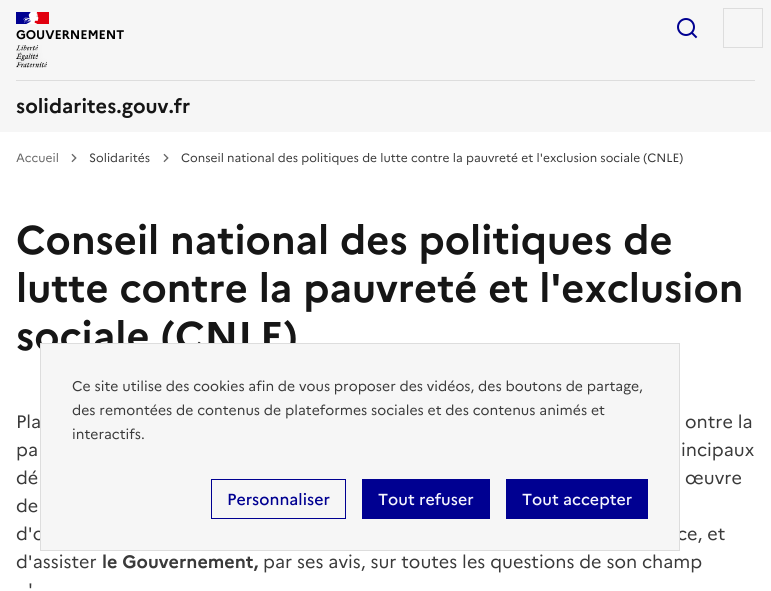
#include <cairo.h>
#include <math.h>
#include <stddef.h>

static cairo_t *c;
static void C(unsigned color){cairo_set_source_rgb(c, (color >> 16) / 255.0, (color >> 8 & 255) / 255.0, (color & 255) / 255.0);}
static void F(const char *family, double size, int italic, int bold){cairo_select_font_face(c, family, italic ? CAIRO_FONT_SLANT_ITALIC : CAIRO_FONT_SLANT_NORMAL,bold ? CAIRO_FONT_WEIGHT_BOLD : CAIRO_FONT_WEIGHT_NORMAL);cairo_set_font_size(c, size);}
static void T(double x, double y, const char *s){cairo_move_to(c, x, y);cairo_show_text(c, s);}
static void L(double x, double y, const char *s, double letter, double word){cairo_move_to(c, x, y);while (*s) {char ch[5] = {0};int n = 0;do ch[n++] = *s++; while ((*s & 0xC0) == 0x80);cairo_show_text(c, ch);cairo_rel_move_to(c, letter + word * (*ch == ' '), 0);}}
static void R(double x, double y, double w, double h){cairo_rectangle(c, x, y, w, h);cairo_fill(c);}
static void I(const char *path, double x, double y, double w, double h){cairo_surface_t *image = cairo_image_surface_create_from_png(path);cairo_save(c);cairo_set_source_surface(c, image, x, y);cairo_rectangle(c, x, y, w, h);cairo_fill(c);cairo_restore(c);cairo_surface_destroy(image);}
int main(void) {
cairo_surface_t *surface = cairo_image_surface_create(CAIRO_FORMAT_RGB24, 771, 591);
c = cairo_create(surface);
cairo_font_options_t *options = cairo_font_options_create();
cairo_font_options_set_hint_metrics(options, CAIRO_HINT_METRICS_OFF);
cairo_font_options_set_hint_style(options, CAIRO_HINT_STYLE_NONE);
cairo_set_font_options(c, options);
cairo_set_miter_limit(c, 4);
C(0xffffff);
cairo_paint(c);
C(0xf6f6f6);
R(0,0,771,132);
C(0x000091);
R(16,12,16,12);
C(0xe1000f);
R(34,12,15,12);
I("1.png",23,12,16,12);
F("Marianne",12.5,0,1);
C(0x000000);
L(16,39,"GOUVERNEMENT",-.1,0);
I("2.png",16,45,31,23);
I("3.png",677,18,21,21);
cairo_rectangle(c,723.5,8.5,39,39);
C(0xdddddd);
cairo_set_line_width(c,1);
cairo_stroke(c);
R(16,80,739,1);
F("Marianne",20,0,1);
C(0x161616);
T(16,113,"solidarites.gouv.fr");
F("Marianne",12,0,0);
C(0x666666);
T(16,162,"Accueil");
I("4.png",71,153,6,10);
C(0x3a3a3a);
T(89,162,"Solidarités");
I("4.png",163,153,6,10);
T(181,162,"Conseil national des politiques de lutte contre la pauvreté et l'exclusion sociale (CNLE)");
F("Marianne",40,0,1);
C(0x161616);
T(16,254,"Conseil national des politiques de");
T(16,302,"lutte contre la pauvreté et l'exclusion");
T(16,350,"sociale (CNLE)");
F("Marianne",18,0,0);
C(0x3a3a3a);
T(16,428,"Pla");
T(685,428,"ontre la");
T(16,456,"pa");
T(681,456,"incipaux");
T(16,484,"dé");
T(685,484,"œuvre");
T(16,512,"de");
T(16,540,"d'o");
T(677,540,"ce, et");
T(16,568,"d'assister");
F("Marianne",18,0,1);
T(102,568,"le Gouvernement,");
F("Marianne",18,0,0);
T(263,568,"par ses avis, sur toutes les questions de son champ");
T(28,596,"'");
C(0xf6f6f6);
cairo_rectangle(c,40.5,343.5,639,207);
cairo_fill_preserve(c);
C(0xdddddd);
cairo_stroke(c);
F("Marianne",14,0,0);
C(0x3a3a3a);
T(72,391,"Ce site utilise des cookies afin de vous proposer des vidéos, des boutons de partage,");
T(72,415,"des remontées de contenus de plateformes sociales et des contenus animés et");
T(72,439,"interactifs.");
cairo_rectangle(c,211.5,479.5,134,39);
C(0x000091);
cairo_stroke(c);
F("Marianne Medium",16,0,0);
T(227,505,"Personnaliser");
R(362,479,128,40);
C(0xf5f5fe);
T(378,505,"Tout refuser");
C(0x000091);
R(506,479,142,40);
C(0xf5f5fe);
T(522,505,"Tout accepter");
cairo_surface_write_to_png(surface, "o.png");
cairo_font_options_destroy(options);
cairo_destroy(c);
cairo_surface_destroy(surface);
return 0;
}
